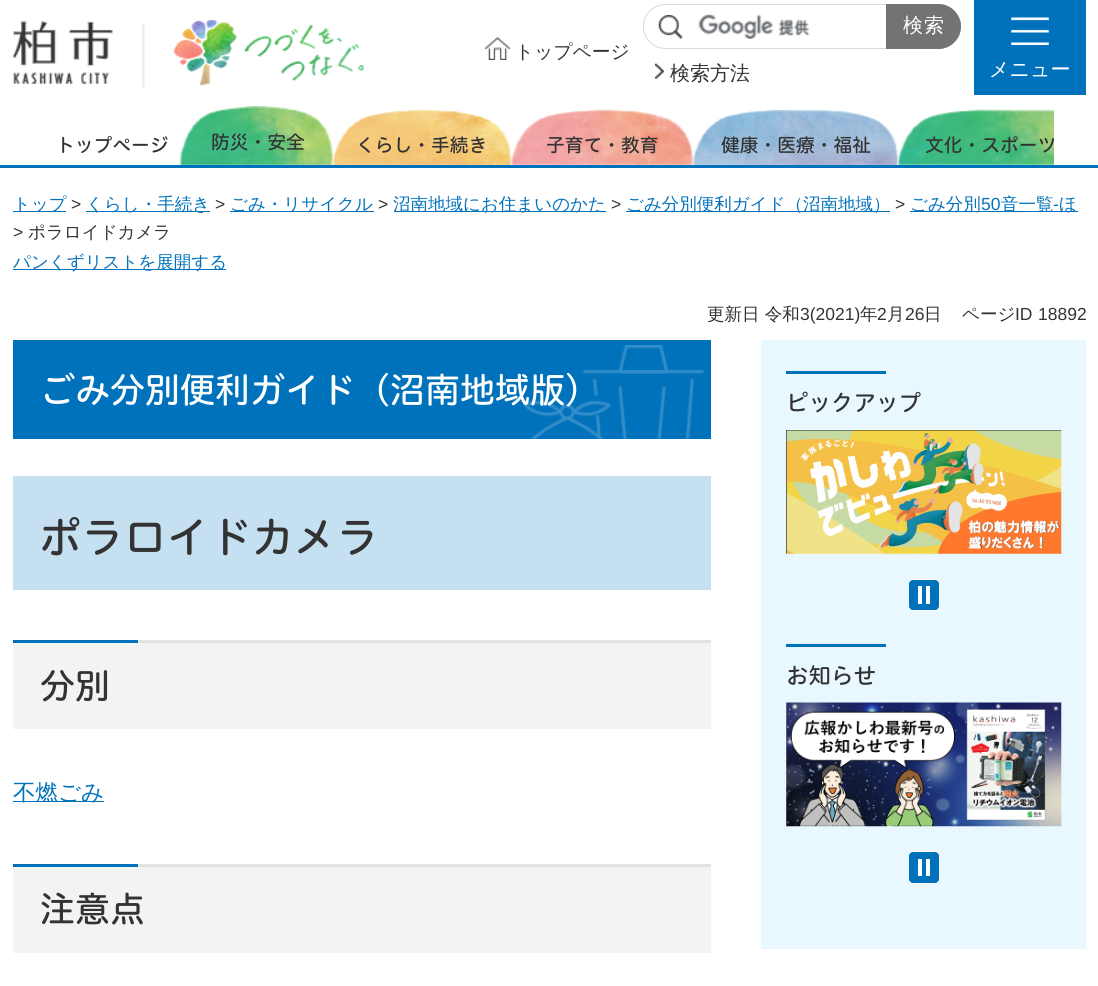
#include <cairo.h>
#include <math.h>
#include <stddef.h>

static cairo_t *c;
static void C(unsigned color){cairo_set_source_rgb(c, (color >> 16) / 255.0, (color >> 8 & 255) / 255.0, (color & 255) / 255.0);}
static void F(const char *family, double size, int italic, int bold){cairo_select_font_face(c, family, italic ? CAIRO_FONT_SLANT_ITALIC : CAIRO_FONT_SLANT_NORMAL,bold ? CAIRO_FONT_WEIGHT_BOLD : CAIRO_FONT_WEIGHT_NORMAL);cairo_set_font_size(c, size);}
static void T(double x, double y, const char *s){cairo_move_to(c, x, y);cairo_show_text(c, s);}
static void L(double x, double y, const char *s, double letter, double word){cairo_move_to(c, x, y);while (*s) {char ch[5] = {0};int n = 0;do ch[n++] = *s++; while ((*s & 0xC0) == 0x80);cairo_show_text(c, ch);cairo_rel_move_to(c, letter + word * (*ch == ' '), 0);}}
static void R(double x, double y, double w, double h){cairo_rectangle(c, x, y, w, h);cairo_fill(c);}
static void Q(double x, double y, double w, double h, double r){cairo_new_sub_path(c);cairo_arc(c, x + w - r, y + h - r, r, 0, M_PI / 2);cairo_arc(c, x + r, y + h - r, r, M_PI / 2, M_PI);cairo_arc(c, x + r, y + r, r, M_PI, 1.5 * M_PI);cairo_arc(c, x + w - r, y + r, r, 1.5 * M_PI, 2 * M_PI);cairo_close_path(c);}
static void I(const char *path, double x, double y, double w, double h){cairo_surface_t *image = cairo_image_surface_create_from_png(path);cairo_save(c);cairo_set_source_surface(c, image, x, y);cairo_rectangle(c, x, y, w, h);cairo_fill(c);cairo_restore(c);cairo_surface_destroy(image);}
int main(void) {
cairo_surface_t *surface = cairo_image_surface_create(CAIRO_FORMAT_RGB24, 1098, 986);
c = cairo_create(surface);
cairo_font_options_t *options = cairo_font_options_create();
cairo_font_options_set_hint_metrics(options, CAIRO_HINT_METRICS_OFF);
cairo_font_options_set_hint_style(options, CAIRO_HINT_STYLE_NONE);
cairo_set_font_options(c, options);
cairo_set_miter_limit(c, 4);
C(0xffffff);
cairo_paint(c);
C(0x0072bc);
R(0,165,1098,3);
I("1.png",13,20,351,68);
I("2.png",485,37,25,23);
F("WenQuanYi Zen Hei Medium",18.75,0,0);
C(0x333333);
T(515,58,"トップページ");
I("3.png",698,14,112,25);
Q(643.5,4.5,317,44,22);
C(0xd9d9d9);
cairo_set_line_width(c,1);
cairo_stroke(c);
I("4.png",658,15,25,24);
C(0x737373);
cairo_new_path(c);
cairo_move_to(c,886.5,4.5);
cairo_line_to(c,938.5,4.5);
cairo_curve_to(c,950.5,4.5,960.5,14.5,960.5,26.5);
cairo_curve_to(c,960.5,38.5,950.5,48.5,938.5,48.5);
cairo_line_to(c,886.5,48.5);
cairo_close_path(c);
cairo_fill_preserve(c);
cairo_stroke(c);
F("WenQuanYi Zen Hei Medium",20,0,0);
C(0xffffff);
L(903,32,"検索",1,0);
I("5.png",655,63,9,16);
C(0x333333);
T(670,80,"検索方法");
C(0x0072bc);
R(974,0,112,95);
I("6.png",1011,17,38,28);
C(0xffffff);
T(989,76,"メニュー");
F("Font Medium",18.75,0,0);
C(0x333333);
T(56,152,"トップページ");
I("7.png",179,106,154,59);
T(211,149,"防災・安全");
I("8.png",332,110,180,55);
T(356,152,"くらし・手続き");
I("9.png",510,109,183,56);
T(546,152,"子育て・教育");
I("10.png",692,110,207,55);
T(721,152,"健康・医療・福祉");
I("11.png",898,109,156,56);
T(925,152,"文化・スポーツ");
C(0x0072bc);
R(13,211,53,1);
F("WenQuanYi Zen Hei Medium",17.5,0,0);
T(13,210,"トップ");
F("Liberation Sans",17.5,0,0);
C(0x333333);
T(71,210,">");
C(0x0072bc);
R(86,211,124,1);
F("WenQuanYi Zen Hei Medium",17.5,0,0);
T(86,210,"くらし・手続き");
F("Liberation Sans",17.5,0,0);
C(0x333333);
T(215,210,">");
C(0x0072bc);
R(230,211,144,1);
F("WenQuanYi Zen Hei Medium",17.5,0,0);
T(230,210,"ごみ・リサイクル");
F("Liberation Sans",17.5,0,0);
C(0x333333);
T(378,210,">");
C(0x0072bc);
R(394,211,212,1);
F("WenQuanYi Zen Hei Medium",17.5,0,0);
T(393,210,"沼南地域にお住まいのかた");
F("Liberation Sans",17.5,0,0);
C(0x333333);
T(611,210,">");
C(0x0072bc);
R(626,211,264,1);
F("WenQuanYi Zen Hei Medium",17.5,0,0);
T(626,210,"ごみ分別便利ガイド（沼南地域）");
F("Liberation Sans",17.5,0,0);
C(0x333333);
T(895,210,">");
C(0x0072bc);
R(910,211,168,1);
F("WenQuanYi Zen Hei Medium",17.5,0,0);
T(910,210,"ごみ分別");
F("Liberation Sans",17.5,0,0);
T(981,210,"50");
F("WenQuanYi Zen Hei Medium",17.5,0,0);
T(1001,210,"音一覧");
F("Liberation Sans",17.5,0,0);
T(1053,210,"-");
F("WenQuanYi Zen Hei Medium",17.5,0,0);
T(1059,210,"ほ");
F("Liberation Sans",17.5,0,0);
C(0x333333);
T(13,238,">");
F("WenQuanYi Zen Hei Medium",17.5,0,0);
T(28,238,"ポラロイドカメラ");
C(0x0072bc);
R(13,269,213,1);
T(13,268,"パンくずリストを展開する");
C(0x333333);
T(707,320,"更新日 令和");
F("Liberation Sans",17.5,0,0);
T(800,320,"3(2021)");
F("WenQuanYi Zen Hei Medium",17.5,0,0);
T(860,320,"年");
F("Liberation Sans",17.5,0,0);
T(877,320,"2");
F("WenQuanYi Zen Hei Medium",17.5,0,0);
T(887,320,"月");
F("Liberation Sans",17.5,0,0);
T(905,320,"26");
F("WenQuanYi Zen Hei Medium",17.5,0,0);
T(924,320,"日");
T(962,320,"ページ");
F("Liberation Sans",17.5,0,0);
T(1015,320,"ID");
T(1038,320,"18892");
C(0x0072bc);
R(13,340,698,99);
I("12.png",523,345,181,94);
F("Font Medium",35,0,0);
C(0xffffff);
T(40,403,"ごみ分別便利ガイド（沼南地域版）");
C(0xc5e0f1);
R(13,476,698,114);
F("Font Medium",42.5,0,0);
C(0x333333);
T(39,553,"ポラロイドカメラ");
C(0xf3f3f3);
R(13,643,698,86);
C(0xe3e3e3);
R(138,640,573,3);
C(0x0072bc);
R(13,640,125,3);
F("Font Medium",35,0,0);
C(0x333333);
T(40,699,"分別");
C(0x0072bc);
R(13,801,91,1);
F("WenQuanYi Zen Hei Medium",22.5,0,0);
T(13,800,"不燃ごみ");
C(0xf3f3f3);
R(13,867,698,86);
C(0xe3e3e3);
R(138,864,573,3);
C(0x0072bc);
R(13,864,125,3);
F("Font Medium",35,0,0);
C(0x333333);
T(40,922,"注意点");
C(0xe9f7ff);
R(761,340,325,609);
C(0x0072bc);
R(786,371,100,3);
F("Font Medium",22.5,0,0);
C(0x333333);
T(786,411,"ピックアップ");
I("13.png",786,430,276,124);
C(0x0072bc);
Q(908.5,579.5,31,31,4.5);
cairo_fill_preserve(c);
C(0xffffff);
cairo_stroke(c);
R(918,586,4,18);
R(926,586,4,18);
C(0x0072bc);
R(786,644,100,3);
C(0x333333);
T(786,684,"お知らせ");
I("14.png",786,702,276,125);
C(0x0072bc);
Q(908.5,851.5,31,32,4.5);
cairo_fill_preserve(c);
C(0xffffff);
cairo_stroke(c);
R(918,859,4,17);
R(926,859,4,17);
cairo_surface_write_to_png(surface, "o.png");
cairo_font_options_destroy(options);
cairo_destroy(c);
cairo_surface_destroy(surface);
return 0;
}
